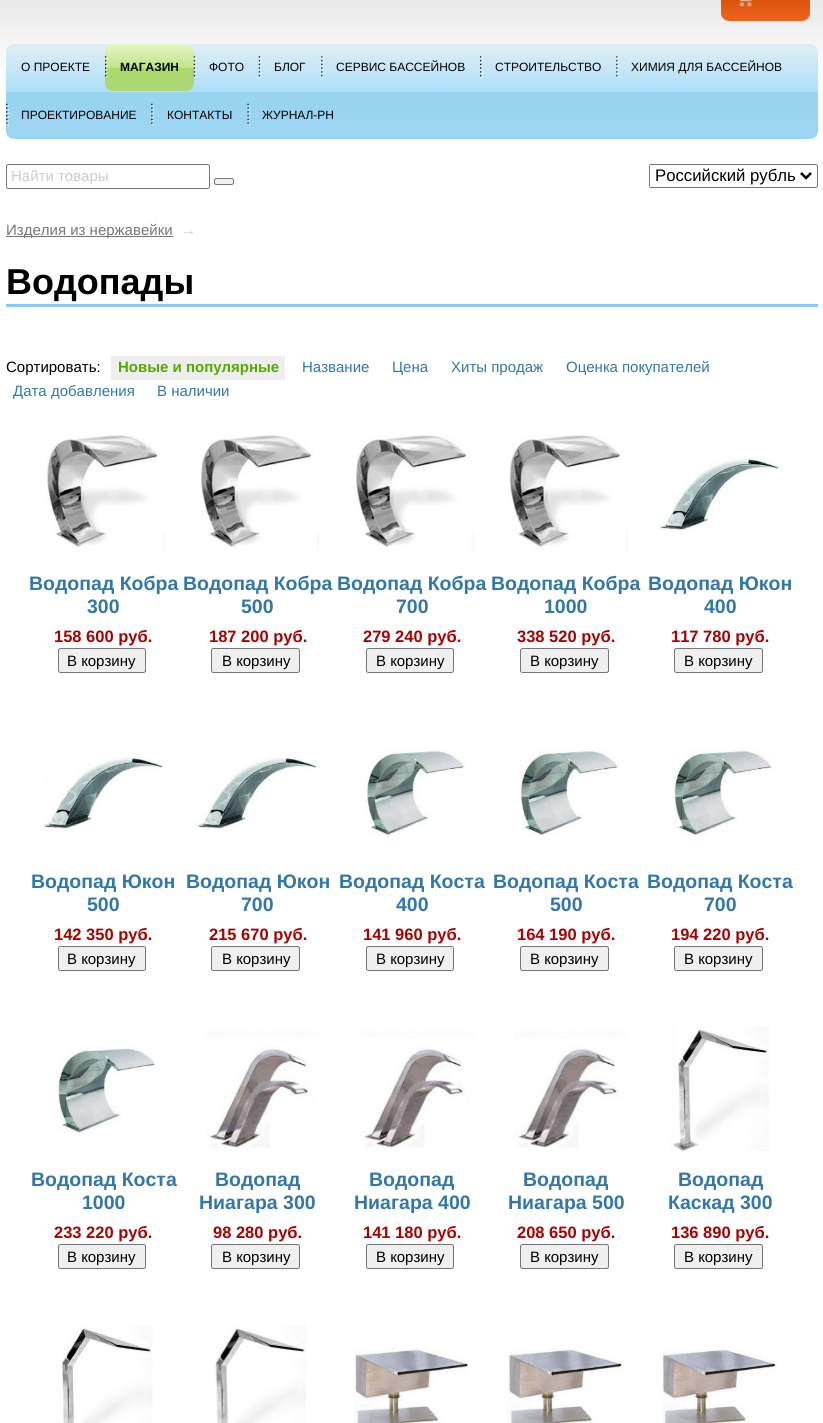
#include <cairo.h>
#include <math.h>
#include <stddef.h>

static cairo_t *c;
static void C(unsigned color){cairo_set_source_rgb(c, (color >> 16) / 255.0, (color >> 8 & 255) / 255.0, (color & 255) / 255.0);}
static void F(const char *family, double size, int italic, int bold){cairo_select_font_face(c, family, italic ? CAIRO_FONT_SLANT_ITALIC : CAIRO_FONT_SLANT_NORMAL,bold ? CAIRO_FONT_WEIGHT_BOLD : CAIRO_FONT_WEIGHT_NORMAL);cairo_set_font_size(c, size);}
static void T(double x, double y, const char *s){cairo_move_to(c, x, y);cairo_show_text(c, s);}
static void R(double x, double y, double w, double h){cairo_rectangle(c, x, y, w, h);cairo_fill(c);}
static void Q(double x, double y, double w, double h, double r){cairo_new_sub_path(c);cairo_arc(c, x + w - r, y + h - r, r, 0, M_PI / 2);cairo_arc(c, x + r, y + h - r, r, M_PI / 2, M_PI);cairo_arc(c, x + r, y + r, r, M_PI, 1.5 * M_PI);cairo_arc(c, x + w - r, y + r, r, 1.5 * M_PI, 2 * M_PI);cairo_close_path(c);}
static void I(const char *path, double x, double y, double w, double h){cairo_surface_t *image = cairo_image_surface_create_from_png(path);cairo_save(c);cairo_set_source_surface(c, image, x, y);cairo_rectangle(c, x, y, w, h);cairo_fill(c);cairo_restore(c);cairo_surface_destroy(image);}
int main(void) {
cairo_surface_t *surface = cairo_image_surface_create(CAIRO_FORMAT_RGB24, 823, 1423);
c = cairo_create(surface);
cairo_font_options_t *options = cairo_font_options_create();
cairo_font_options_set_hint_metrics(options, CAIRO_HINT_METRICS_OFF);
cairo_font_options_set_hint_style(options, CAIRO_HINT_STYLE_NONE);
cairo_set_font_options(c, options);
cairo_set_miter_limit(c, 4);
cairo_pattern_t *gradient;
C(0xffffff);
cairo_paint(c);
gradient = cairo_pattern_create_linear(412,-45,412,80);
cairo_pattern_add_color_stop_rgba(gradient,0,0.867,0.867,0.867,1);
cairo_pattern_add_color_stop_rgba(gradient,1,1,1,1,1);
cairo_set_source(c,gradient);
cairo_pattern_destroy(gradient);
R(0,0,823,71);
gradient = cairo_pattern_create_linear(766,-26,766,21);
cairo_pattern_add_color_stop_rgba(gradient,0,0.984,0.725,0.592,1);
cairo_pattern_add_color_stop_rgba(gradient,.5,0.945,0.455,0.196,1);
cairo_pattern_add_color_stop_rgba(gradient,.51,0.851,0.325,0.047,1);
cairo_pattern_add_color_stop_rgba(gradient,1,0.937,0.392,0.122,1);
cairo_set_source(c,gradient);
cairo_pattern_destroy(gradient);
Q(721,-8,89,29,8);
cairo_fill(c);
I("1.png",738,0,15,7);
gradient = cairo_pattern_create_linear(412,44,412,139);
cairo_pattern_add_color_stop_rgba(gradient,0,0.886,0.929,0.961,1);
cairo_pattern_add_color_stop_rgba(gradient,.5,0.678,0.878,0.976,1);
cairo_pattern_add_color_stop_rgba(gradient,.51,0.592,0.824,0.937,1);
cairo_pattern_add_color_stop_rgba(gradient,1,0.616,0.839,0.949,1);
cairo_set_source(c,gradient);
cairo_pattern_destroy(gradient);
Q(6,44,812,95,8);
cairo_fill(c);
F("Liberation Sans",12,0,0);
C(0x000000);
T(21,71,"О ПРОЕКТЕ");
gradient = cairo_pattern_create_linear(149,44,149,91);
cairo_pattern_add_color_stop_rgba(gradient,0,0.898,0.965,0.78,1);
cairo_pattern_add_color_stop_rgba(gradient,.5,0.753,0.89,0.533,1);
cairo_pattern_add_color_stop_rgba(gradient,.51,0.663,0.847,0.404,1);
cairo_pattern_add_color_stop_rgba(gradient,1,0.682,0.839,0.475,1);
cairo_set_source(c,gradient);
cairo_pattern_destroy(gradient);
Q(105,44,89,47,8);
cairo_fill(c);
I("2.png",105,56,3,22);
F("Liberation Sans",12,0,1);
C(0x000000);
T(120,71,"МАГАЗИН");
I("3.png",193,56,4,22);
F("Liberation Sans",12,0,0);
T(209,71,"ФОТО");
I("4.png",258,56,4,22);
T(274,71,"БЛОГ");
I("5.png",321,56,3,22);
T(336,71,"СЕРВИС БАССЕЙНОВ");
I("6.png",480,56,3,22);
T(495,71,"СТРОИТЕЛЬСТВО");
I("5.png",616,56,3,22);
T(631,71,"ХИМИЯ ДЛЯ БАССЕЙНОВ");
I("7.png",6,103,3,23);
T(21,119,"ПРОЕКТИРОВАНИЕ");
I("7.png",151,103,3,23);
T(167,119,"КОНТАКТЫ");
I("8.png",247,103,3,23);
T(262,119,"ЖУРНАЛ-PH");
Q(6.5,164.5,203,24,2);
C(0x767676);
cairo_set_line_width(c,1);
cairo_stroke(c);
F("Liberation Sans",15,0,0);
C(0xcccccc);
T(11,181,"Найти товары");
C(0xefefef);
Q(214.5,178.5,19,6,2);
cairo_fill_preserve(c);
C(0x767676);
cairo_stroke(c);
Q(649.5,164.5,168,23,2);
cairo_stroke(c);
cairo_new_path(c);
cairo_move_to(c,801,173);
cairo_line_to(c,806,178);
cairo_line_to(c,811,173);
C(0x000000);
cairo_set_line_width(c,2.5);
cairo_stroke(c);
F("Liberation Sans",16.75,0,0);
T(655,181,"Российский рубль");
C(0x777777);
R(6,236,167,1);
F("Liberation Sans",15,0,0);
T(6,235,"Изделия из нержавейки");
C(0xcccccc);
T(181,235,"→");
C(0x88ccff);
R(6,304,812,3);
F("Liberation Sans",36,0,1);
C(0x000000);
T(6,294,"Водопады");
F("Liberation Sans",15,0,0);
T(6,372,"Сортировать:");
C(0xeeeeee);
R(111,356,174,24);
F("Liberation Sans",15,0,1);
C(0x55aa00);
T(118,372,"Новые и популярные");
F("Liberation Sans",15,0,0);
C(0x3377aa);
T(302,372,"Название");
T(392,372,"Цена");
T(451,372,"Хиты продаж");
T(566,372,"Оценка покупателей");
T(13,396,"Дата добавления");
T(157,396,"В наличии");
I("9.png",46,435,120,119);
F("Liberation Sans",19.5,0,1);
T(29,590,"Водопад Кобра");
T(87,613,"300");
F("Liberation Sans",16.5,0,1);
C(0xaa0000);
T(54,642,"158 600 руб.");
C(0xefefef);
Q(58.5,648.5,87,24,2);
cairo_fill_preserve(c);
C(0x767676);
cairo_set_line_width(c,1);
cairo_stroke(c);
F("Liberation Sans",15,0,0);
C(0x000000);
T(67,666,"В корзину");
I("10.png",200,435,119,119);
F("Liberation Sans",19.5,0,1);
C(0x3377aa);
T(183,590,"Водопад Кобра");
T(241,613,"500");
F("Liberation Sans",16.5,0,1);
C(0xaa0000);
T(209,642,"187 200 руб.");
C(0xefefef);
Q(211.5,648.5,88,24,2);
cairo_fill_preserve(c);
C(0x767676);
cairo_stroke(c);
F("Liberation Sans",15,0,0);
C(0x000000);
T(222,666,"В корзину");
I("10.png",355,435,119,119);
F("Liberation Sans",19.5,0,1);
C(0x3377aa);
T(337,590,"Водопад Кобра");
T(396,613,"700");
F("Liberation Sans",16.5,0,1);
C(0xaa0000);
T(363,642,"279 240 руб.");
C(0xefefef);
Q(366.5,648.5,87,24,2);
cairo_fill_preserve(c);
C(0x767676);
cairo_stroke(c);
F("Liberation Sans",15,0,0);
C(0x000000);
T(376,666,"В корзину");
I("11.png",509,435,119,118);
F("Liberation Sans",19.5,0,1);
C(0x3377aa);
T(491,590,"Водопад Кобра");
T(544,613,"1000");
F("Liberation Sans",16.5,0,1);
C(0xaa0000);
T(517,642,"338 520 руб.");
C(0xefefef);
Q(520.5,648.5,88,24,2);
cairo_fill_preserve(c);
C(0x767676);
cairo_stroke(c);
F("Liberation Sans",15,0,0);
C(0x000000);
T(530,666,"В корзину");
I("12.png",657,457,125,73);
F("Liberation Sans",19.5,0,1);
C(0x3377aa);
T(648,590,"Водопад Юкон");
T(704,613,"400");
F("Liberation Sans",16.5,0,1);
C(0xaa0000);
T(671,642,"117 780 руб.");
C(0xefefef);
Q(674.5,648.5,88,24,2);
cairo_fill_preserve(c);
C(0x767676);
cairo_stroke(c);
F("Liberation Sans",15,0,0);
C(0x000000);
T(684,666,"В корзину");
I("13.png",41,756,125,73);
F("Liberation Sans",19.5,0,1);
C(0x3377aa);
T(31,888,"Водопад Юкон");
T(87,911,"500");
F("Liberation Sans",16.5,0,1);
C(0xaa0000);
T(54,940,"142 350 руб.");
C(0xefefef);
Q(58.5,946.5,87,24,2);
cairo_fill_preserve(c);
C(0x767676);
cairo_stroke(c);
F("Liberation Sans",15,0,0);
C(0x000000);
T(67,964,"В корзину");
I("14.png",195,755,125,74);
F("Liberation Sans",19.5,0,1);
C(0x3377aa);
T(186,888,"Водопад Юкон");
T(241,911,"700");
F("Liberation Sans",16.5,0,1);
C(0xaa0000);
T(209,940,"215 670 руб.");
C(0xefefef);
Q(211.5,946.5,88,24,2);
cairo_fill_preserve(c);
C(0x767676);
cairo_stroke(c);
F("Liberation Sans",15,0,0);
C(0x000000);
T(222,964,"В корзину");
I("15.png",365,749,101,88);
F("Liberation Sans",19.5,0,1);
C(0x3377aa);
T(339,888,"Водопад Коста");
T(396,911,"400");
F("Liberation Sans",16.5,0,1);
C(0xaa0000);
T(363,940,"141 960 руб.");
C(0xefefef);
Q(366.5,946.5,87,24,2);
cairo_fill_preserve(c);
C(0x767676);
cairo_stroke(c);
F("Liberation Sans",15,0,0);
C(0x000000);
T(376,964,"В корзину");
I("16.png",519,749,101,88);
F("Liberation Sans",19.5,0,1);
C(0x3377aa);
T(493,888,"Водопад Коста");
T(550,911,"500");
F("Liberation Sans",16.5,0,1);
C(0xaa0000);
T(517,940,"164 190 руб.");
C(0xefefef);
Q(520.5,946.5,88,24,2);
cairo_fill_preserve(c);
C(0x767676);
cairo_stroke(c);
F("Liberation Sans",15,0,0);
C(0x000000);
T(530,964,"В корзину");
I("17.png",673,749,100,88);
F("Liberation Sans",19.5,0,1);
C(0x3377aa);
T(647,888,"Водопад Коста");
T(704,911,"700");
F("Liberation Sans",16.5,0,1);
C(0xaa0000);
T(671,940,"194 220 руб.");
C(0xefefef);
Q(674.5,946.5,88,24,2);
cairo_fill_preserve(c);
C(0x767676);
cairo_stroke(c);
F("Liberation Sans",15,0,0);
C(0x000000);
T(684,964,"В корзину");
I("18.png",56,1046,101,87);
F("Liberation Sans",19.5,0,1);
C(0x3377aa);
T(31,1186,"Водопад Коста");
T(82,1209,"1000");
F("Liberation Sans",16.5,0,1);
C(0xaa0000);
T(54,1238,"233 220 руб.");
C(0xefefef);
Q(58.5,1244.5,87,24,2);
cairo_fill_preserve(c);
C(0x767676);
cairo_stroke(c);
F("Liberation Sans",15,0,0);
C(0x000000);
T(67,1262,"В корзину");
I("19.png",205,1031,115,117);
F("Liberation Sans",19.5,0,1);
C(0x3377aa);
T(215,1186,"Водопад");
T(199,1209,"Ниагара 300");
F("Liberation Sans",16.5,0,1);
C(0xaa0000);
T(213,1238,"98 280 руб.");
C(0xefefef);
Q(211.5,1244.5,88,24,2);
cairo_fill_preserve(c);
C(0x767676);
cairo_stroke(c);
F("Liberation Sans",15,0,0);
C(0x000000);
T(222,1262,"В корзину");
I("19.png",360,1031,115,117);
F("Liberation Sans",19.5,0,1);
C(0x3377aa);
T(369,1186,"Водопад");
T(354,1209,"Ниагара 400");
F("Liberation Sans",16.5,0,1);
C(0xaa0000);
T(363,1238,"141 180 руб.");
C(0xefefef);
Q(366.5,1244.5,87,24,2);
cairo_fill_preserve(c);
C(0x767676);
cairo_stroke(c);
F("Liberation Sans",15,0,0);
C(0x000000);
T(376,1262,"В корзину");
I("20.png",514,1031,115,117);
F("Liberation Sans",19.5,0,1);
C(0x3377aa);
T(523,1186,"Водопад");
T(508,1209,"Ниагара 500");
F("Liberation Sans",16.5,0,1);
C(0xaa0000);
T(517,1238,"208 650 руб.");
C(0xefefef);
Q(520.5,1244.5,88,24,2);
cairo_fill_preserve(c);
C(0x767676);
cairo_stroke(c);
F("Liberation Sans",15,0,0);
C(0x000000);
T(530,1262,"В корзину");
I("21.png",671,1026,98,125);
F("Liberation Sans",19.5,0,1);
C(0x3377aa);
T(678,1186,"Водопад");
T(668,1209,"Каскад 300");
F("Liberation Sans",16.5,0,1);
C(0xaa0000);
T(671,1238,"136 890 руб.");
C(0xefefef);
Q(674.5,1244.5,88,24,2);
cairo_fill_preserve(c);
C(0x767676);
cairo_stroke(c);
F("Liberation Sans",15,0,0);
C(0x000000);
T(684,1262,"В корзину");
I("22.png",61,1325,92,98);
I("23.png",215,1325,91,98);
I("24.png",350,1348,120,75);
I("25.png",504,1348,120,75);
I("26.png",657,1348,120,75);
cairo_surface_write_to_png(surface, "o.png");
cairo_font_options_destroy(options);
cairo_destroy(c);
cairo_surface_destroy(surface);
return 0;
}
